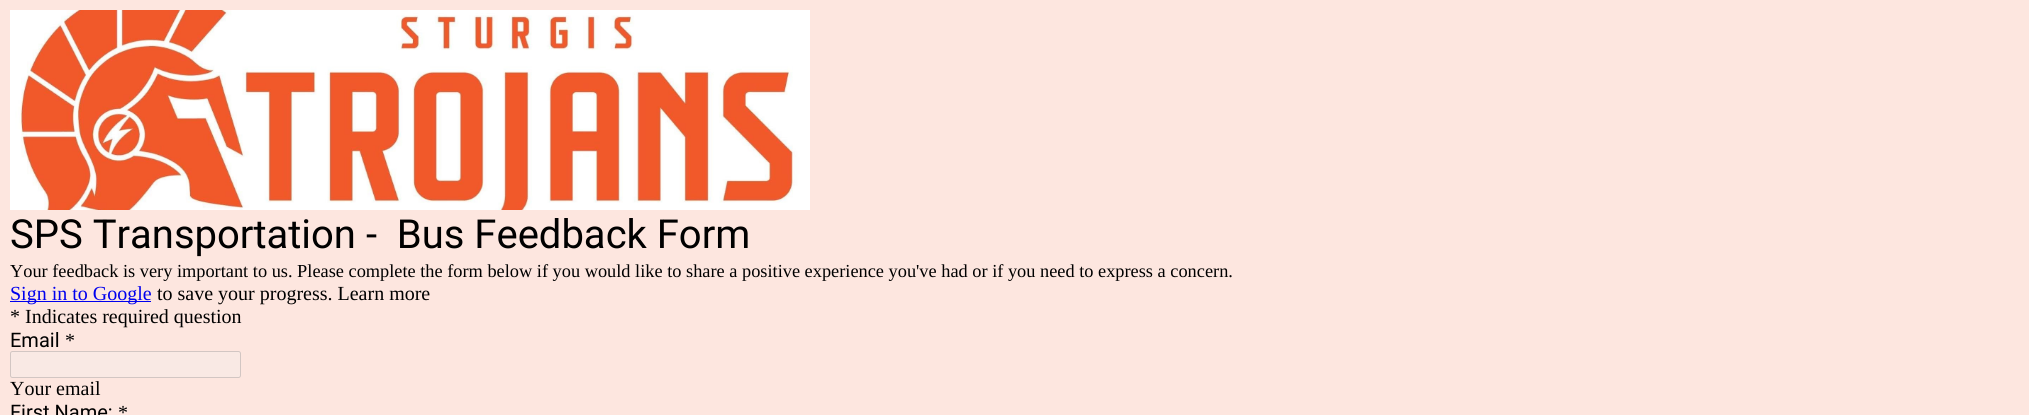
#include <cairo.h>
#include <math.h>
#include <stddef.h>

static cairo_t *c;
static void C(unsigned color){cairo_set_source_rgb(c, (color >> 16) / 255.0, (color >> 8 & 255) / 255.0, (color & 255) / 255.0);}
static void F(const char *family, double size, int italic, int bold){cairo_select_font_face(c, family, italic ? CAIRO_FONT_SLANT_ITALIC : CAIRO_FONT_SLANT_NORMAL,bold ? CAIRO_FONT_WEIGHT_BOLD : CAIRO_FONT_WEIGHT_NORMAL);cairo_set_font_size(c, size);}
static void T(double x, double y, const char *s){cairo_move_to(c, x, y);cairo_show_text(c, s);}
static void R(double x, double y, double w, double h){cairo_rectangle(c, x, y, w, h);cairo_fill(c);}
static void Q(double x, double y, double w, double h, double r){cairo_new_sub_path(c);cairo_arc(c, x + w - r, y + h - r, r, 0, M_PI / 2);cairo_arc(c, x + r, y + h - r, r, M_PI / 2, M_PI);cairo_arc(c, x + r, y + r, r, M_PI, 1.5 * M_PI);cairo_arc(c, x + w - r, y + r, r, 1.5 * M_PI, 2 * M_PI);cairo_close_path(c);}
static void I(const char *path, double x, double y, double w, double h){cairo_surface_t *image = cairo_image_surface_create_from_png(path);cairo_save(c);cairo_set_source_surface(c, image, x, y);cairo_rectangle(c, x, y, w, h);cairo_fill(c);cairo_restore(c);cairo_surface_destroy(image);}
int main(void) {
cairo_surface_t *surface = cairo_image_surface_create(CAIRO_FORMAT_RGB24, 2029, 415);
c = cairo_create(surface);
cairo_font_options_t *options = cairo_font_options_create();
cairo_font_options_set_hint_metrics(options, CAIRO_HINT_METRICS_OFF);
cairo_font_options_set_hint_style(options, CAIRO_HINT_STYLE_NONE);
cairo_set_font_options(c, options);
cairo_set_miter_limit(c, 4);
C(0xfde6df);
cairo_paint(c);
I("1.png",10,10,800,200);
F("Roboto",40,0,0);
C(0x000000);
T(10,248,"SPS Transportation -  Bus Feedback Form");
F("Liberation Serif",18.33,0,0);
T(10,277,"Your feedback is very important to us. Please complete the form below if you would like to share a positive experience you've had or if you need to express a concern.");
C(0x0000ee);
R(10,301,141,1);
F("Liberation Serif",20,0,0);
T(10,300,"Sign in to Google");
C(0x000000);
T(157,300,"to save your progress. Learn more");
T(10,323,"* Indicates required question");
F("Roboto",20,0,0);
T(10,347,"Email");
F("Liberation Serif",20,0,0);
T(65,347,"*");
C(0xf9e9e4);
Q(10.5,351.5,230,26,2);
cairo_fill_preserve(c);
C(0xd2c6c3);
cairo_set_line_width(c,1);
cairo_stroke(c);
C(0x000000);
T(10,395,"Your email");
F("Roboto",20,0,0);
T(10,419,"First Name:");
F("Liberation Serif",20,0,0);
T(118,419,"*");
cairo_surface_write_to_png(surface, "o.png");
cairo_font_options_destroy(options);
cairo_destroy(c);
cairo_surface_destroy(surface);
return 0;
}
